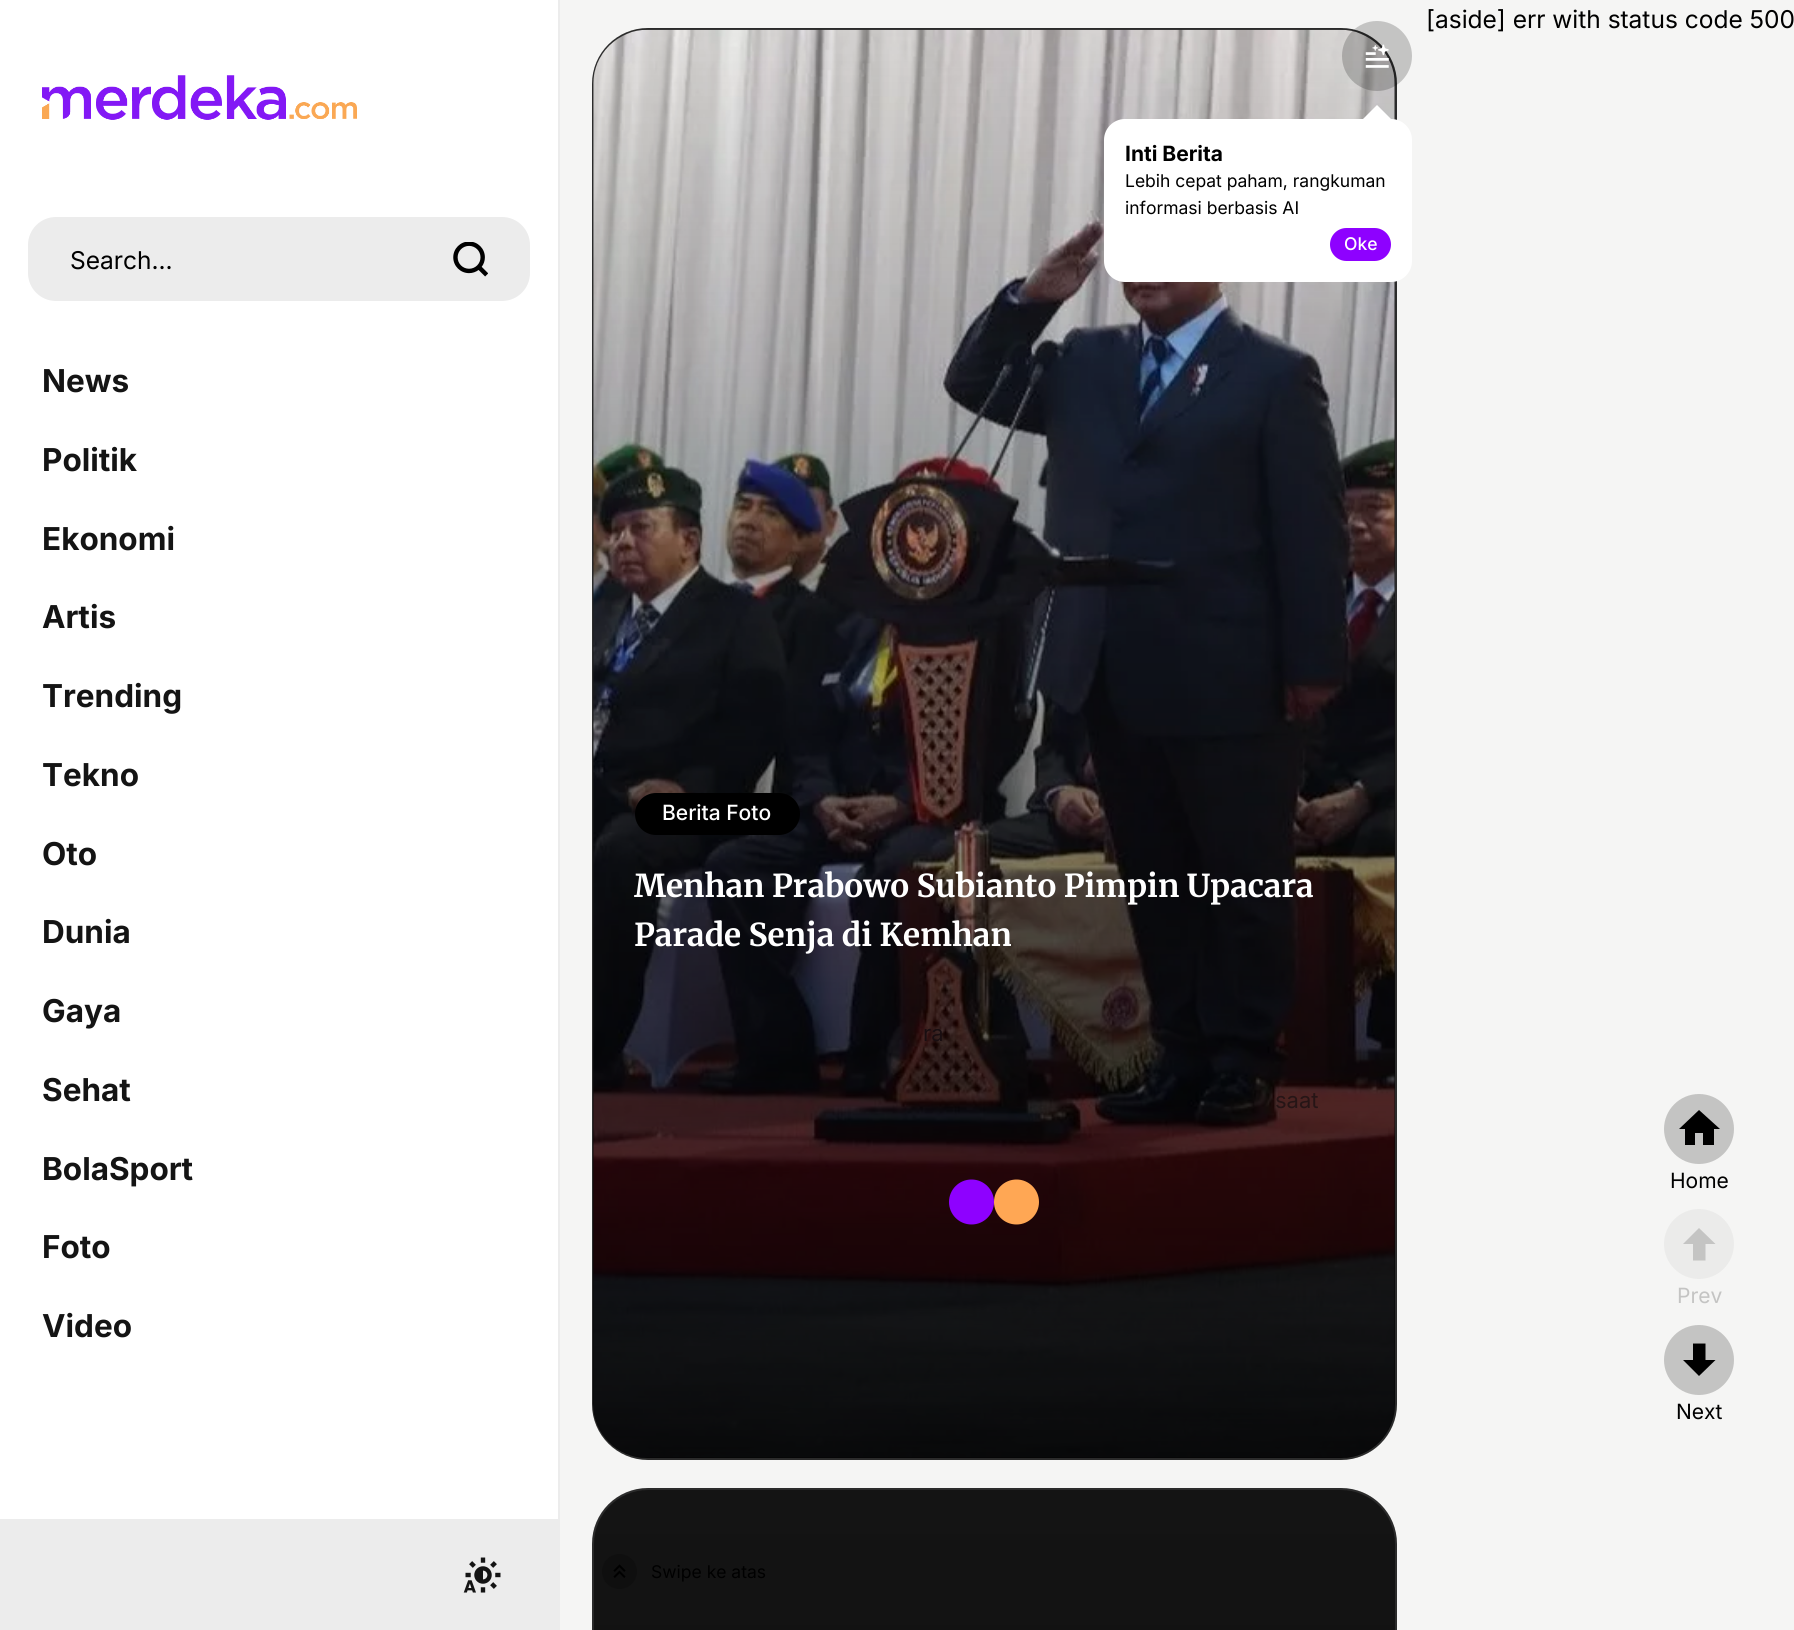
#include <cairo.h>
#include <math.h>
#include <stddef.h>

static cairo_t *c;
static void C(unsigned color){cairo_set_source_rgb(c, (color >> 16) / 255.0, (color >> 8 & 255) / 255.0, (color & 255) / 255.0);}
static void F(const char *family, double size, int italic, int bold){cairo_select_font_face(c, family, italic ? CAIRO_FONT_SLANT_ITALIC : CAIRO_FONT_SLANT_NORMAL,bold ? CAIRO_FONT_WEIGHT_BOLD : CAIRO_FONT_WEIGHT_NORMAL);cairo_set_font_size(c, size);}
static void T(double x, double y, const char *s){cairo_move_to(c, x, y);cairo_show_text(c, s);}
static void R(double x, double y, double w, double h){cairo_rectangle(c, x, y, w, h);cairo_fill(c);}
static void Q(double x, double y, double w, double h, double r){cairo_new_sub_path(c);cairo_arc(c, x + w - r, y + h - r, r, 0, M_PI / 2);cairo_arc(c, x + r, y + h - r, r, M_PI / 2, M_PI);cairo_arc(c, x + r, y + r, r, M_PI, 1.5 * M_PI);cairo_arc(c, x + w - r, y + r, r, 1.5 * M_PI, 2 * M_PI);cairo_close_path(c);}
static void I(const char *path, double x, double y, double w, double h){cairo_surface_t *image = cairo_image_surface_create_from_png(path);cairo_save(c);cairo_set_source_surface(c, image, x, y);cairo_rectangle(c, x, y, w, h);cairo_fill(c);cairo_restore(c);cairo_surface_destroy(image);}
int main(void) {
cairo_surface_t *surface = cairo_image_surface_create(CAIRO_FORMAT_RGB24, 1794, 1630);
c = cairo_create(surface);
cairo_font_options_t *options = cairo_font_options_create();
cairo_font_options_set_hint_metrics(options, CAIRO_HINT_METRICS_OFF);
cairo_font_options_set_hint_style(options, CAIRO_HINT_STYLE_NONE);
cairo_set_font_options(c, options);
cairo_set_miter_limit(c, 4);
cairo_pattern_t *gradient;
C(0xf5f5f4);
cairo_paint(c);
F("Inter",24.5,0,0);
C(0x000000);
T(1426,28,"[aside] err with status code 500");
C(0x141414);
Q(592,28,805,1432,56);
cairo_fill(c);
Q(593,29,803,1430,55);
cairo_set_source_rgba(c,1,1,1,0.1);
cairo_stroke(c);
I("2.png",593,29,802,1429);
gradient = cairo_pattern_create_linear(994,1458,994,30);
cairo_pattern_add_color_stop_rgba(gradient,0,0,0,0,.9);
cairo_pattern_add_color_stop_rgba(gradient,.5,0,0,0,.4);
cairo_pattern_add_color_stop_rgba(gradient,1,0,0,0,0);
cairo_set_source(c,gradient);
cairo_pattern_destroy(gradient);
Q(593,30,802,1428,54);
cairo_fill(c);
cairo_set_source_rgba(c,0,0,0,0.2);
cairo_arc(c,1377,56,35,0,2 * M_PI);
cairo_fill(c);
I("1.png",1365,44,24,24);
C(0xffffff);
Q(1104,119,308,163,21);
cairo_fill(c);
cairo_new_path(c);
cairo_move_to(c,1391,119);
cairo_line_to(c,1363,119);
cairo_line_to(c,1377,105);
cairo_close_path(c);
cairo_fill(c);
F("Inter",21,0,1);
C(0x000000);
T(1125,161,"Inti Berita");
F("Inter",17.5,0,0);
T(1125,187,"Lebih cepat paham, rangkuman");
T(1125,214,"informasi berbasis AI");
C(0x8e01ff);
Q(1330,228,61,33,16.5);
cairo_fill(c);
F("Inter Medium",17.5,0,0);
C(0xffffff);
T(1344,250,"Oke");
C(0x000000);
Q(635,793,165,42,21);
cairo_fill(c);
F("Inter Medium",21,0,0);
C(0xffffff);
T(662,820,"Berita Foto");
F("Merriweather",31.5,0,1);
T(634,897,"Menhan Prabowo Subianto Pimpin Upacara");
T(634,946,"Parade Senja di Kemhan");
F("Inter",22,0,0);
C(0x190e11);
T(923,1041,"ra");
C(0x261516);
T(1275,1108,"saat");
C(0xffa754);
cairo_new_path(c);
cairo_arc(c,1016.5,1202,22.5,0,2 * M_PI);
cairo_fill(c);
C(0x8e01ff);
cairo_arc(c,971.5,1202,22.5,0,2 * M_PI);
cairo_fill(c);
C(0x141414);
cairo_new_path(c);
cairo_move_to(c,648,1488);
cairo_line_to(c,1341,1488);
cairo_curve_to(c,1372,1488,1397,1513,1397,1544);
cairo_line_to(c,1397,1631);
cairo_line_to(c,592,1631);
cairo_line_to(c,592,1544);
cairo_curve_to(c,592,1513,617,1488,648,1488);
cairo_close_path(c);
cairo_fill(c);
Q(593,1489,803,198,55);
cairo_set_source_rgba(c,1,1,1,0.1);
cairo_stroke(c);
gradient = cairo_pattern_create_linear(994,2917,994,1489);
cairo_pattern_add_color_stop_rgba(gradient,0,0,0,0,.9);
cairo_pattern_add_color_stop_rgba(gradient,.5,0,0,0,.4);
cairo_pattern_add_color_stop_rgba(gradient,1,0,0,0,0);
cairo_set_source(c,gradient);
cairo_pattern_destroy(gradient);
R(593,1527,802,103);
C(0x0f0f0f);
cairo_arc(c,619.5,1571.5,17.5,0,2 * M_PI);
cairo_fill(c);
I("3.png",613,1564,13,14);
F("Inter",17.5,0,0);
C(0x000000);
T(651,1578,"Swipe ke atas");
C(0xffffff);
R(0,0,558,1519);
C(0xececec);
R(558,0,2,1630);
I("4.png",42,75,315,45);
Q(28,217,502,84,28);
cairo_fill(c);
F("Inter",24.5,0,0);
C(0x000000);
T(70,269,"Search...");
I("5.png",453,242,35,35);
F("Inter",31.5,0,1);
C(0x141414);
T(42,392,"News");
T(42,471,"Politik");
T(42,550,"Ekonomi");
T(42,628,"Artis");
T(42,707,"Trending");
T(42,786,"Tekno");
T(42,865,"Oto");
T(42,943,"Dunia");
T(42,1022,"Gaya");
T(42,1101,"Sehat");
T(42,1180,"BolaSport");
T(42,1258,"Foto");
T(42,1337,"Video");
C(0xececec);
R(0,1519,558,111);
I("6.png",463,1557,38,36);
C(0xc4c4c3);
cairo_arc(c,1699,1129,35,0,2 * M_PI);
cairo_fill(c);
C(0x000000);
cairo_new_path(c);
cairo_move_to(c,1695,1145);
cairo_line_to(c,1695,1133);
cairo_line_to(c,1703,1133);
cairo_line_to(c,1703,1145);
cairo_line_to(c,1714,1145);
cairo_line_to(c,1714,1129);
cairo_line_to(c,1720,1129);
cairo_line_to(c,1699,1110);
cairo_line_to(c,1679,1129);
cairo_line_to(c,1685,1129);
cairo_line_to(c,1685,1145);
cairo_close_path(c);
cairo_fill(c);
F("Inter",21,0,0);
T(1670,1188,"Home");
C(0xebebea);
cairo_new_path(c);
cairo_arc(c,1699,1244,35,0,2 * M_PI);
cairo_fill(c);
C(0xc4c4c3);
cairo_new_path(c);
cairo_move_to(c,1693,1260.5);
cairo_line_to(c,1705.5,1260.5);
cairo_line_to(c,1705.5,1244);
cairo_line_to(c,1715.5,1244);
cairo_line_to(c,1699,1228);
cairo_line_to(c,1683,1244);
cairo_line_to(c,1693,1244);
cairo_close_path(c);
cairo_fill(c);
T(1677,1303,"Prev");
cairo_new_path(c);
cairo_arc(c,1699,1360,35,0,2 * M_PI);
cairo_fill(c);
C(0x000000);
cairo_new_path(c);
cairo_move_to(c,1693,1343.5);
cairo_line_to(c,1705.5,1343.5);
cairo_line_to(c,1705.5,1360);
cairo_line_to(c,1715.5,1360);
cairo_line_to(c,1699,1376);
cairo_line_to(c,1683,1360);
cairo_line_to(c,1693,1360);
cairo_close_path(c);
cairo_fill(c);
T(1676,1419,"Next");
cairo_surface_write_to_png(surface, "o.png");
cairo_font_options_destroy(options);
cairo_destroy(c);
cairo_surface_destroy(surface);
return 0;
}
